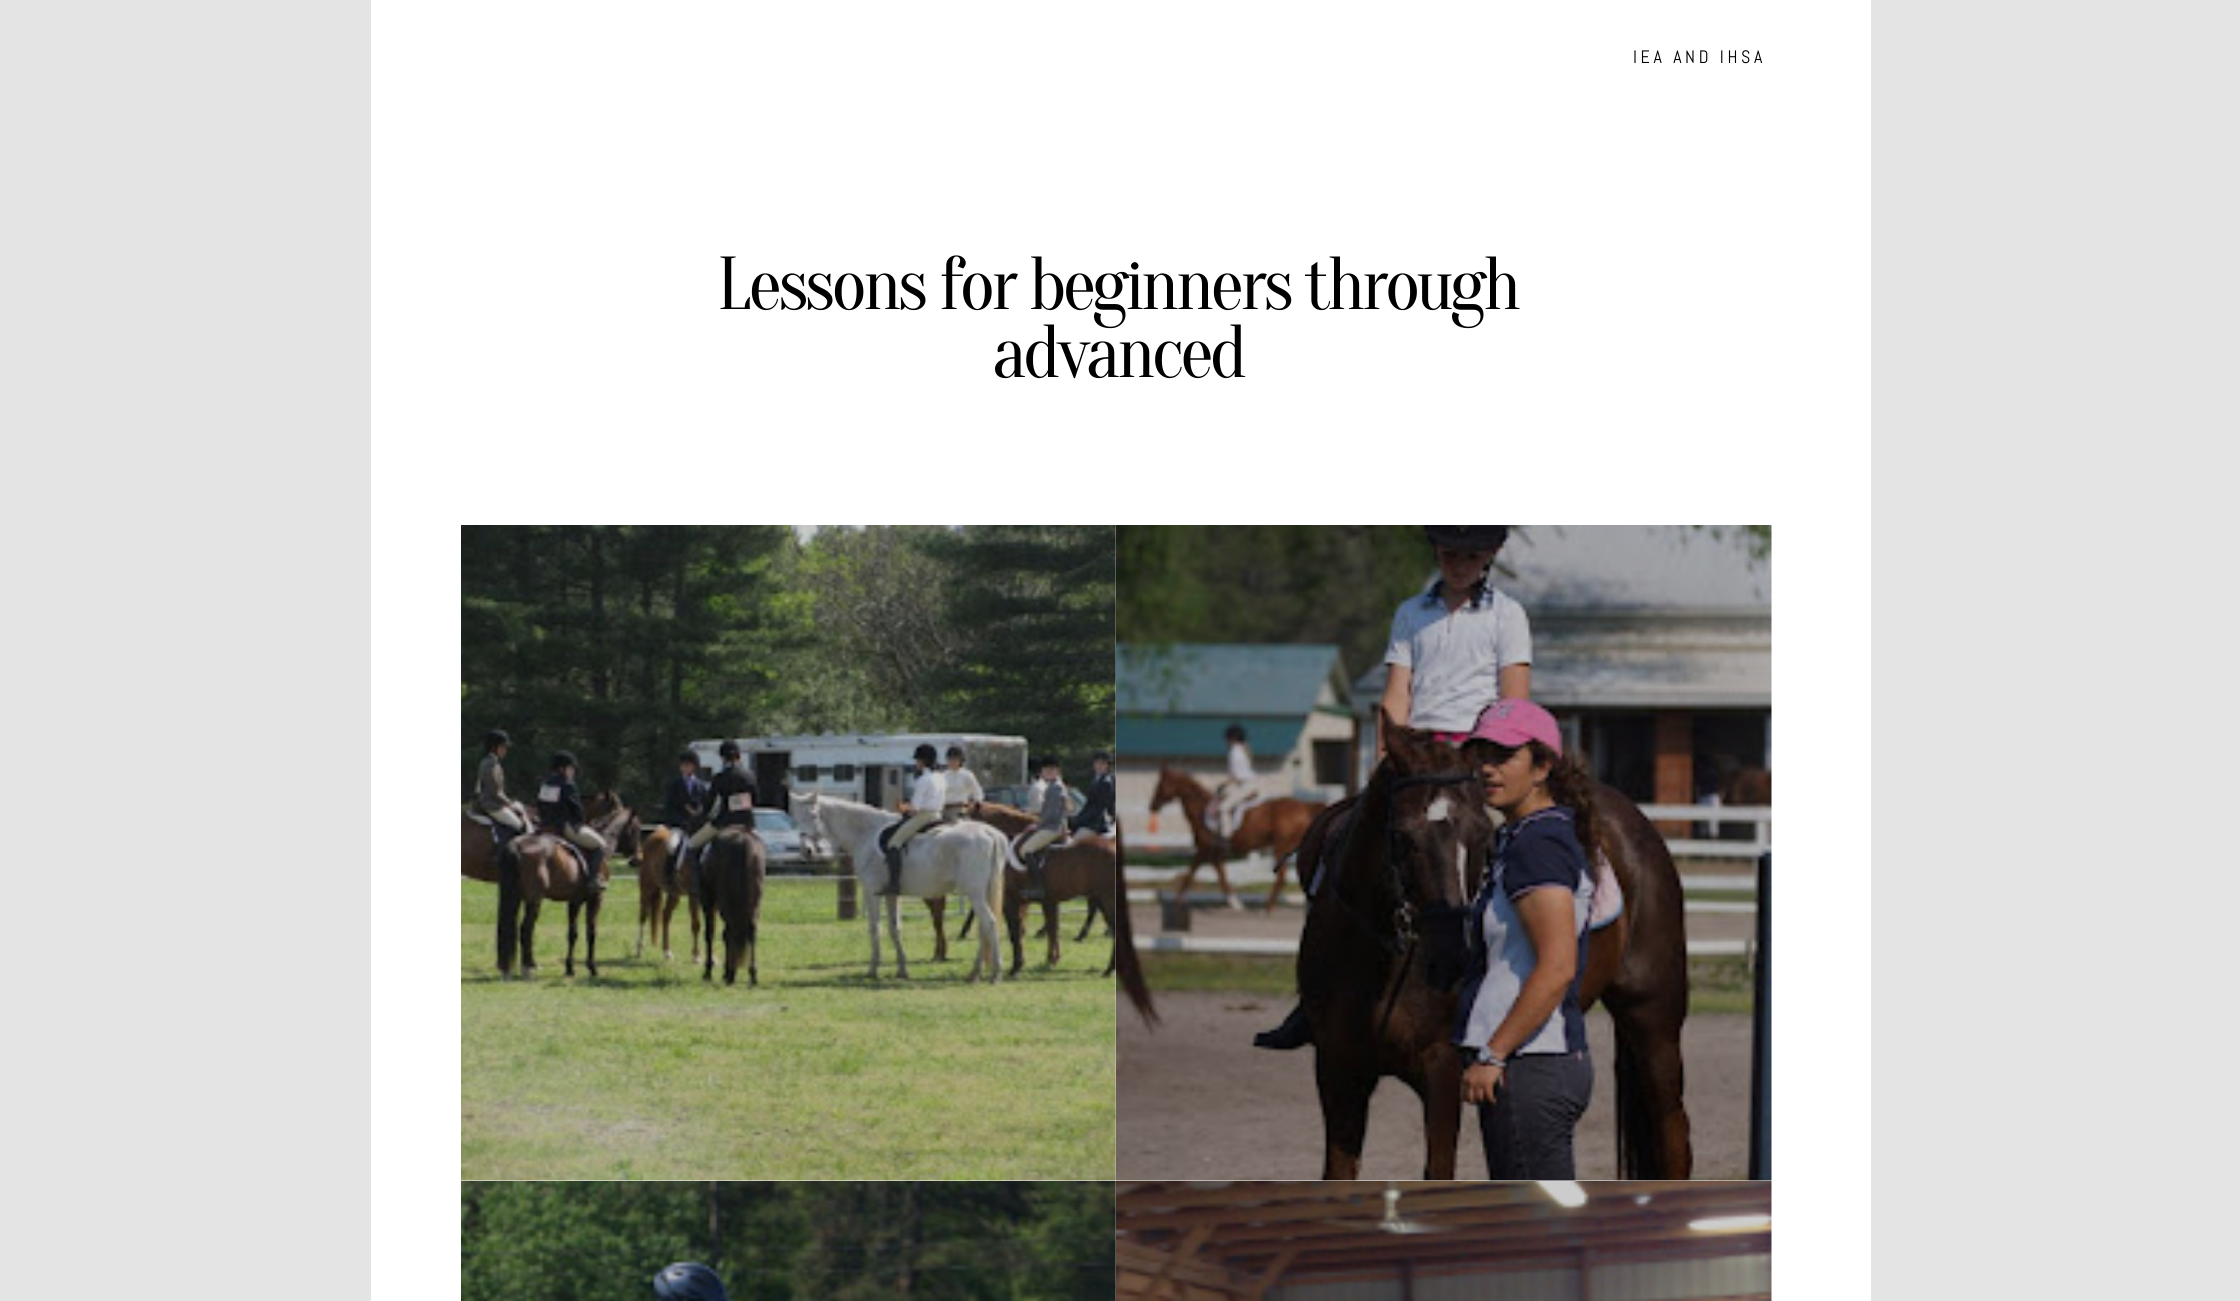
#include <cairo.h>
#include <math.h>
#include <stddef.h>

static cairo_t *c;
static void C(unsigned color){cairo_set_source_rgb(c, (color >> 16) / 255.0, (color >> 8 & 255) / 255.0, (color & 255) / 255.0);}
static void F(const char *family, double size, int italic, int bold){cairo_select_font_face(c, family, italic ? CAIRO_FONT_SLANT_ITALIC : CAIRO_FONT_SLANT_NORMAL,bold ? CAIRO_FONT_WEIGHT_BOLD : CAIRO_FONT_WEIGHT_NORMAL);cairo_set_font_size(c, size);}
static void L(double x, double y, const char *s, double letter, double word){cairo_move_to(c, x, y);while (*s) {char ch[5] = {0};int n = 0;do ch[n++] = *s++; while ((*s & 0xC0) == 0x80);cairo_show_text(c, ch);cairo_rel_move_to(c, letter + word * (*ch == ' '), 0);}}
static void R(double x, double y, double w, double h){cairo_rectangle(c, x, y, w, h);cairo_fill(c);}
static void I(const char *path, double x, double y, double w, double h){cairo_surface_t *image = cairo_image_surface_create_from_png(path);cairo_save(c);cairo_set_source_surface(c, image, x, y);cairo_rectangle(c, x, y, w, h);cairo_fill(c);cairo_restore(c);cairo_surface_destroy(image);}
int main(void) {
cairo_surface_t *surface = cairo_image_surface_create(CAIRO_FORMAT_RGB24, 2240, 1301);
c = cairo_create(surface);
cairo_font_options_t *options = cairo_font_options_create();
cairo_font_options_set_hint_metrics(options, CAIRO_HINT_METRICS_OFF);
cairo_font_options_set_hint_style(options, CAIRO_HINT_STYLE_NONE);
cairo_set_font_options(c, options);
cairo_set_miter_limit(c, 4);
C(0xe4e4e4);
cairo_paint(c);
C(0xffffff);
R(371,0,1500,1301);
F("Abel",18,0,0);
C(0x000000);
L(1633,63,"IEA AND IHSA",3.6,0);
F("Oranienbaum",75,0,0);
L(717,309,"Lessons for beginners through",-3.75,0);
L(992,377,"advanced",-3.75,0);
I("1.png",461,525,655,656);
I("2.png",1116,525,656,656);
I("3.png",461,1181,655,120);
I("4.png",1116,1181,656,120);
cairo_surface_write_to_png(surface, "o.png");
cairo_font_options_destroy(options);
cairo_destroy(c);
cairo_surface_destroy(surface);
return 0;
}
